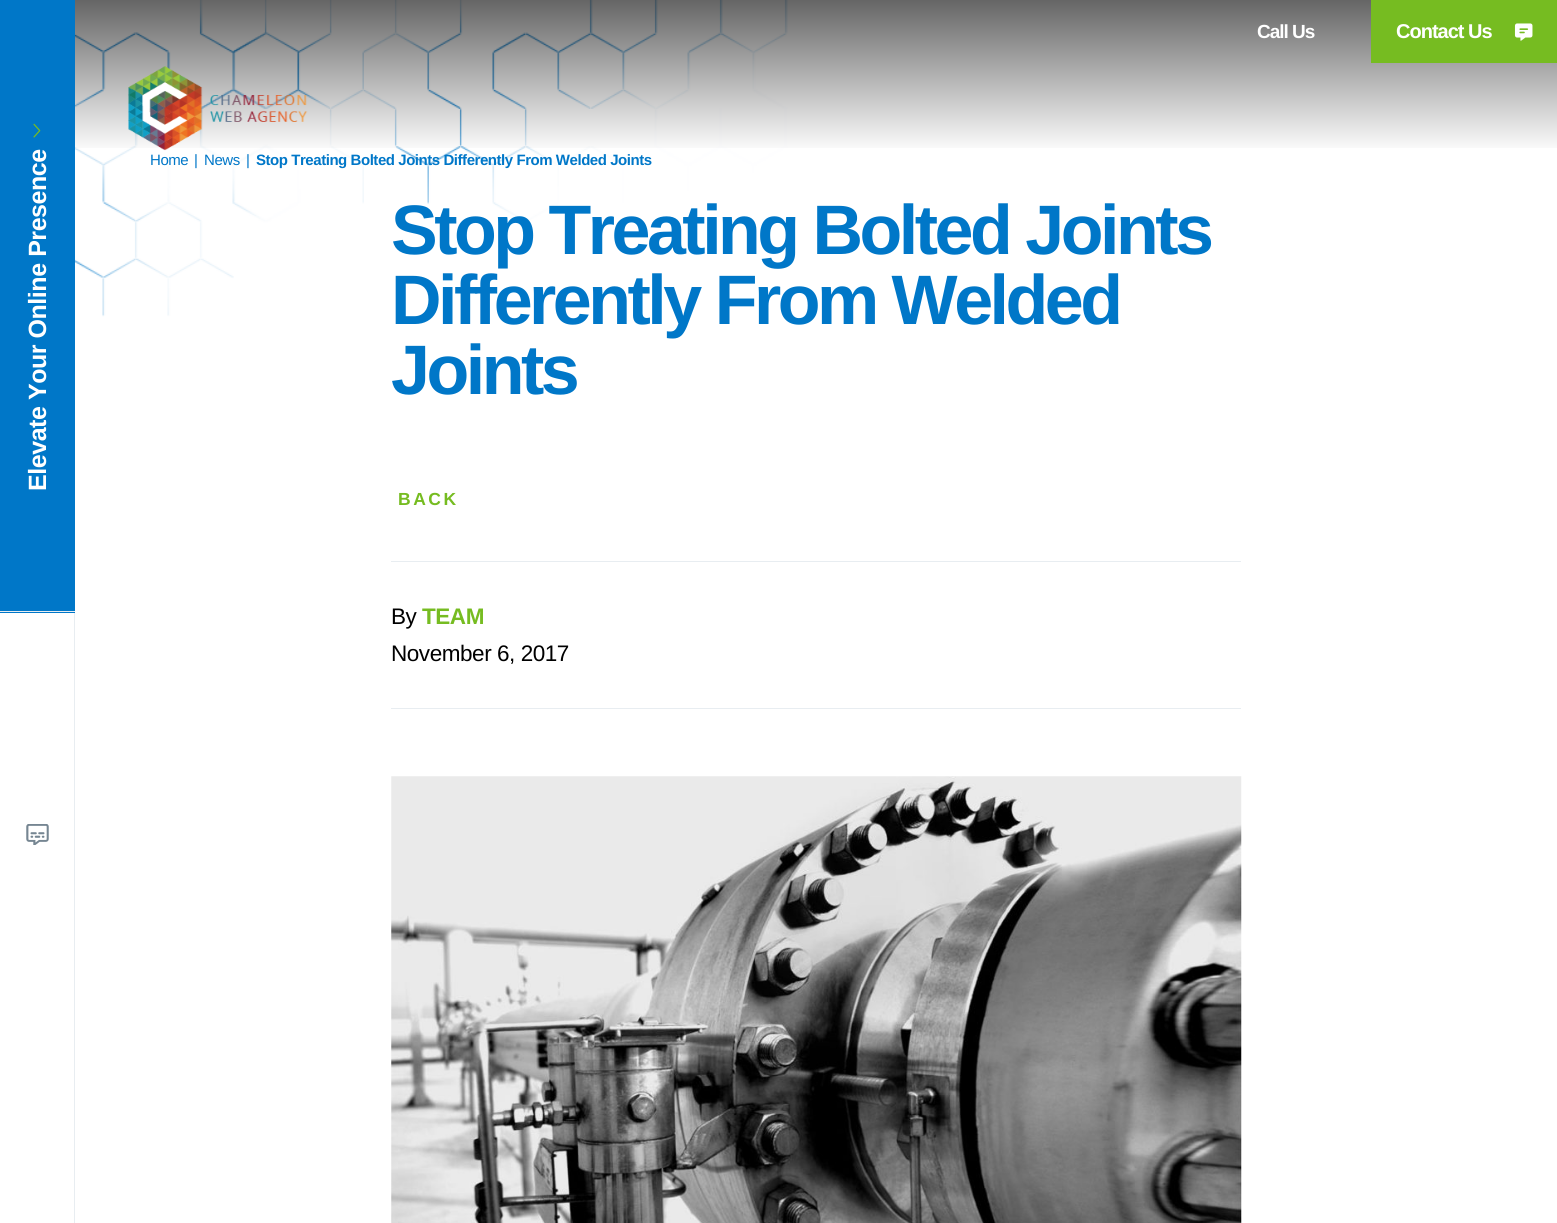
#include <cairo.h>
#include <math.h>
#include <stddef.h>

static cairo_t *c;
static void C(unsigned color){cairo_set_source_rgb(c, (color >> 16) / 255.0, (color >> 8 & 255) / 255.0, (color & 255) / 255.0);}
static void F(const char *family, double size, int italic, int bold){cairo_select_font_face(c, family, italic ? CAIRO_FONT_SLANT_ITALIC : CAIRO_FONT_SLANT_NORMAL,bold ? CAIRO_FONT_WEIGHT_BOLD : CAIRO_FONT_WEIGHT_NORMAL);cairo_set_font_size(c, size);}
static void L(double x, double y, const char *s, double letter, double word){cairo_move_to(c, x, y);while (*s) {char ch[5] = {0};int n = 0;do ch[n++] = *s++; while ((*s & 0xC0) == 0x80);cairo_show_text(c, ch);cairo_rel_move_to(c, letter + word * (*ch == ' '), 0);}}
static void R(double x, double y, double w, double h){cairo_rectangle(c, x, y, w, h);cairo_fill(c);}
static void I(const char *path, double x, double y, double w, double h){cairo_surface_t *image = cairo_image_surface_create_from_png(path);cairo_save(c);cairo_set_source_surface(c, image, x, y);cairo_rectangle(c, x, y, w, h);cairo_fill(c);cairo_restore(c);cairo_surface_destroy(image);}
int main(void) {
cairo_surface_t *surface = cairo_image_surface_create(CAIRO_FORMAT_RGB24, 1557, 1223);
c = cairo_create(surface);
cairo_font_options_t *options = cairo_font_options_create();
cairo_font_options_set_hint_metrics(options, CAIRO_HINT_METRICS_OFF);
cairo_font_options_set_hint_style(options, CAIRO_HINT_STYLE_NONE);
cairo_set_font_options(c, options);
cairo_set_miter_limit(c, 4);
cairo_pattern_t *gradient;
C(0xffffff);
cairo_paint(c);
I("5.png",75,0,713,317);
gradient = cairo_pattern_create_linear(779,0,779,153);
cairo_pattern_add_color_stop_rgba(gradient,0,0,0,0,.6);
cairo_pattern_add_color_stop_rgba(gradient,1,0,0,0,0);
cairo_set_source(c,gradient);
cairo_pattern_destroy(gradient);
R(75,0,1482,148);
F("Liberation Sans",19,0,1);
C(0xffffff);
L(1257,38,"Call Us",-1,0);
C(0x76bc21);
R(1371,0,186,63);
F("Liberation Sans",20,0,1);
C(0xffffff);
L(1396,38,"Contact Us",-1,0);
I("1.png",1514,23,19,18);
I("2.png",128,66,180,85);
C(0xe8edf1);
R(74,613,1,610);
C(0x0077c8);
R(0,0,75,613);
C(0xe8edf1);
R(0,611,75,1);
I("3.png",33,123,8,15);
F("Liberation Sans",25,0,1);
C(0xffffff);
cairo_save(c);
cairo_translate(c,46,491);
cairo_rotate(c,-90 * M_PI / 180);
L(0,0,"Elevate Your Online Presence",-.45,0);
cairo_restore(c);
I("4.png",26,824,23,21);
F("Liberation Sans",15,0,0);
C(0x0077c8);
L(150,165,"Home",-.45,0);
L(194,165,"|",-.45,0);
L(204,165,"News",-.45,0);
L(246,165,"|",-.45,0);
F("Liberation Sans",15,0,1);
L(256,165,"Stop Treating Bolted Joints Differently From Welded Joints",-.45,0);
F("Liberation Sans",70,0,1);
L(391,254,"Stop Treating Bolted Joints",-3.5,0);
L(391,324,"Differently From Welded",-3.5,0);
L(391,394,"Joints",-3.5,0);
F("Liberation Sans",17.5,0,1);
C(0x76bc21);
L(398,505,"BACK",2.5,0);
C(0xe8edf1);
R(391,561,850,1);
R(391,708,850,1);
F("Liberation Sans",22.5,0,0);
C(0x000000);
L(391,624,"By",-.45,0);
F("Liberation Sans",22.5,0,1);
C(0x76bc21);
L(422,624,"TEAM",-.45,0);
F("Liberation Sans",22.5,0,0);
C(0x000000);
L(391,661,"November 6, 2017",-.45,0);
I("6.png",391,776,851,447);
cairo_surface_write_to_png(surface, "o.png");
cairo_font_options_destroy(options);
cairo_destroy(c);
cairo_surface_destroy(surface);
return 0;
}
